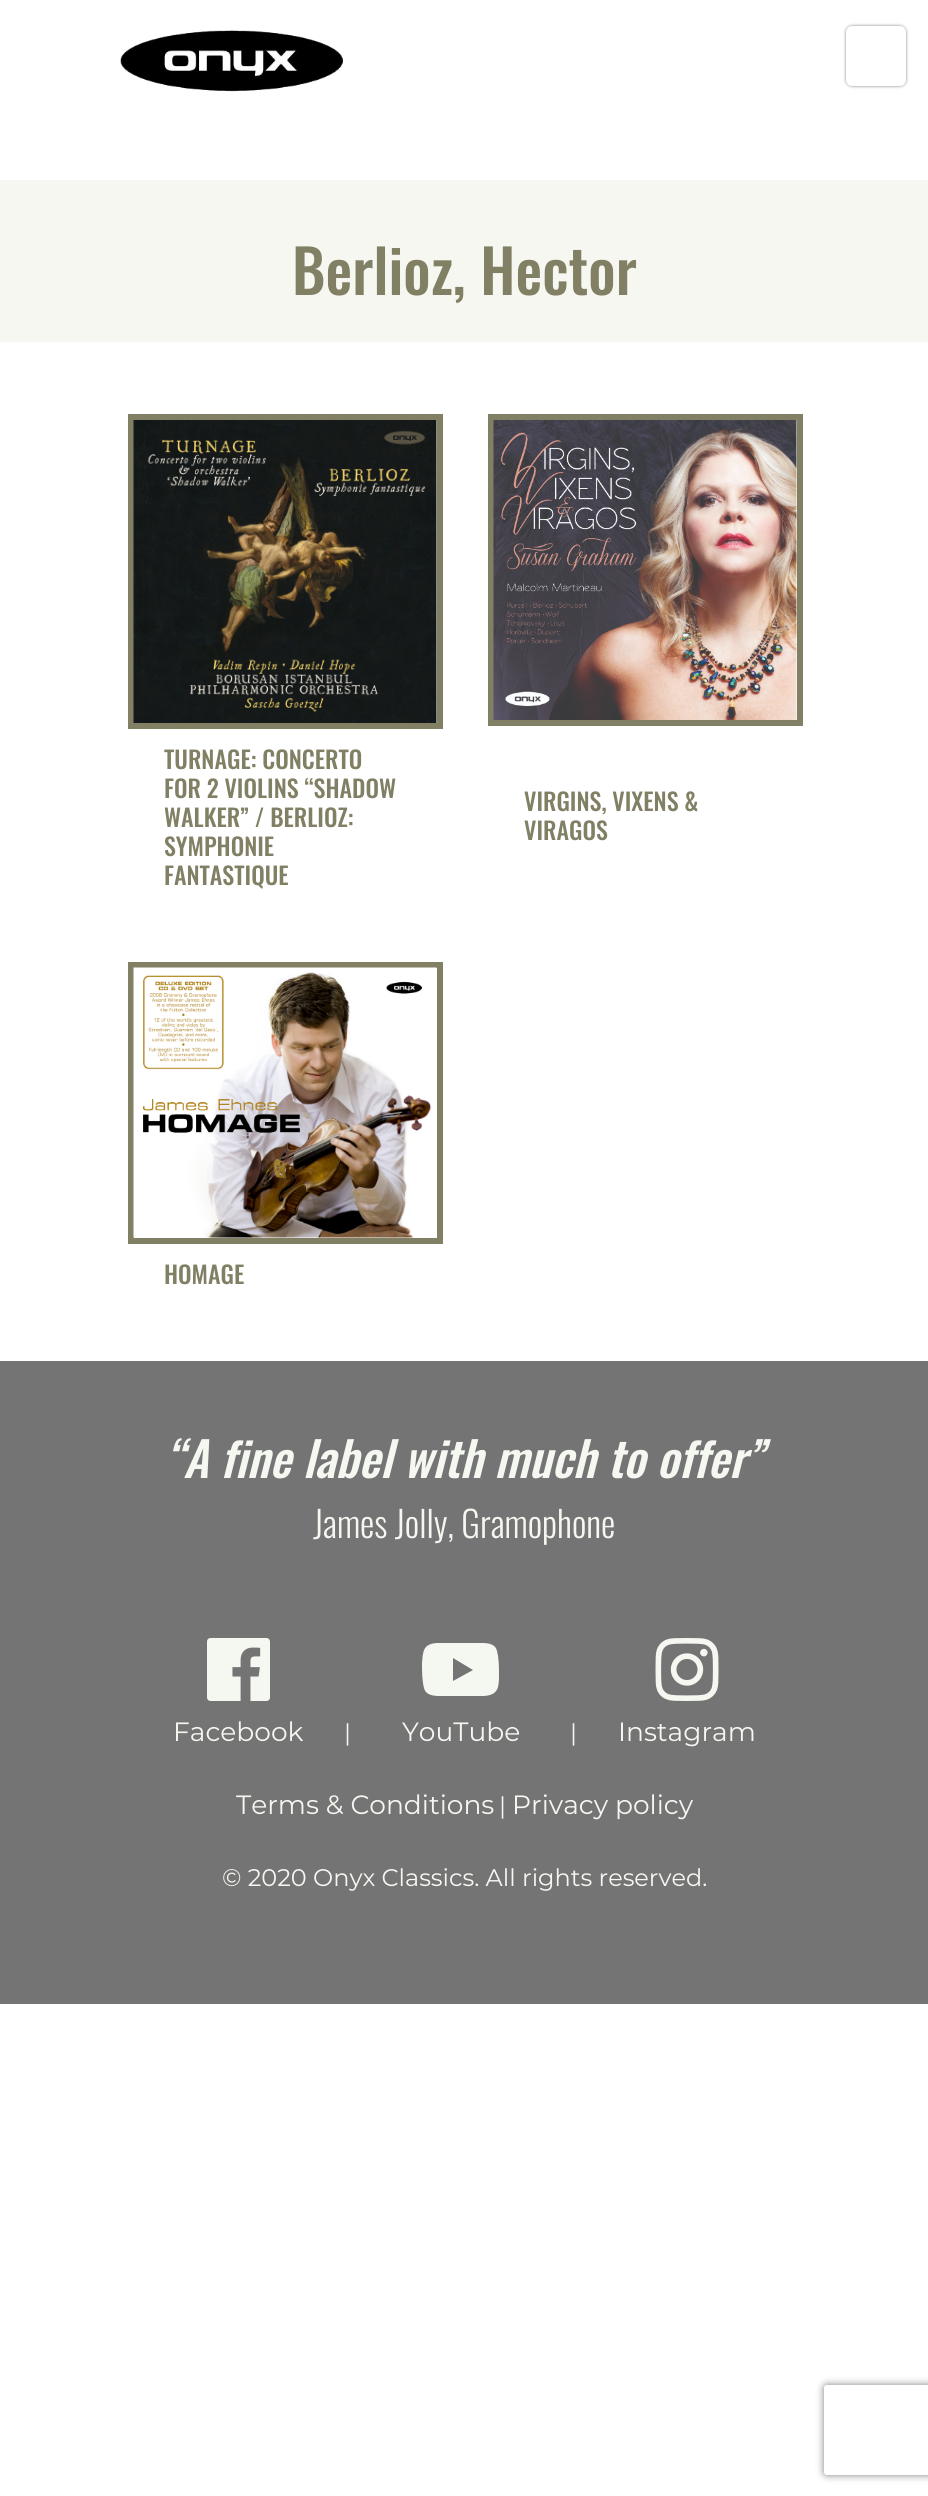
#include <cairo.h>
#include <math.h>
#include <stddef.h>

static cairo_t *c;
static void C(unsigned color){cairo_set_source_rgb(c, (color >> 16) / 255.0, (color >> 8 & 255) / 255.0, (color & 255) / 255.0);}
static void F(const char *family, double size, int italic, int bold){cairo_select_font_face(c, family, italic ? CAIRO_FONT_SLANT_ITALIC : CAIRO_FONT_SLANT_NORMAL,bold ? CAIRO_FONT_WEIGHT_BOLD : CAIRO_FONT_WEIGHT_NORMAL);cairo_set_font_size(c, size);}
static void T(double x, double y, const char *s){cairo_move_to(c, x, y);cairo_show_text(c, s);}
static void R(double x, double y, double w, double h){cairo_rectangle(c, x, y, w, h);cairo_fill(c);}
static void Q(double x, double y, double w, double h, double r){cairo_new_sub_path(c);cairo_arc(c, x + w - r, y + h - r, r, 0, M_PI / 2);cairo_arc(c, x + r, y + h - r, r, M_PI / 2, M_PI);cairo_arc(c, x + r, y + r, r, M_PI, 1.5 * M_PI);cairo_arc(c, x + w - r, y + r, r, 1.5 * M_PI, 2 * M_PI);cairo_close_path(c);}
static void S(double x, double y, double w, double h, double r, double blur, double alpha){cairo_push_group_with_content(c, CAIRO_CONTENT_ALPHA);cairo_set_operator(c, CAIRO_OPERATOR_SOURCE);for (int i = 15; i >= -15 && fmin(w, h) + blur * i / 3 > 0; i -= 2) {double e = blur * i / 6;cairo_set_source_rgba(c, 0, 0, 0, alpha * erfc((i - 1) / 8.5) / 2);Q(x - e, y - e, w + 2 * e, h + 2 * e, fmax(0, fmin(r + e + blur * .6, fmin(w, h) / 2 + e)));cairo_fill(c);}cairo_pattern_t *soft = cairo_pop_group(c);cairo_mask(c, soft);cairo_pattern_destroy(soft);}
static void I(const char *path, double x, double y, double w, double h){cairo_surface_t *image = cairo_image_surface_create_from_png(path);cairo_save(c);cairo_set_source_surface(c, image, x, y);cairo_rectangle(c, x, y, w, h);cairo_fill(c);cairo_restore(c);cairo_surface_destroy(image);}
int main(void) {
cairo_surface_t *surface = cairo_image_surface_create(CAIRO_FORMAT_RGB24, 928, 2496);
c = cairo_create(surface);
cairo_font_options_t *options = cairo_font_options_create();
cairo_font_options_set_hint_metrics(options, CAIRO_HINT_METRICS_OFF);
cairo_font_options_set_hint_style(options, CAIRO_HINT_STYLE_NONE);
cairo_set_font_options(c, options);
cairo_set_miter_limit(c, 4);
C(0xffffff);
cairo_paint(c);
I("1.png",120,30,224,62);
C(0x000000);
S(846,26,60,60,6,1.5,.5);
C(0xffffff);
Q(846,26,60,60,6);
cairo_fill(c);
C(0xf6f7f1);
R(0,180,928,162);
F("Oswald Medium",60,0,0);
C(0x818064);
T(292,295,"Berlioz, Hector");
cairo_rectangle(c,131,417,309,309);
cairo_set_line_width(c,6);
cairo_stroke(c);
I("2.png",133,420,304,303);
F("Oswald Medium",24,0,0);
T(164,769,"TURNAGE: CONCERTO");
T(164,798,"FOR 2 VIOLINS “SHADOW");
T(164,827,"WALKER” / BERLIOZ:");
T(164,856,"SYMPHONIE");
T(164,885,"FANTASTIQUE");
cairo_rectangle(c,491,417,309,306);
cairo_stroke(c);
I("3.png",493,420,304,300);
T(524,811,"VIRGINS, VIXENS &");
T(524,840,"VIRAGOS");
cairo_rectangle(c,131,965,309,276);
cairo_stroke(c);
I("4.png",133,967,304,271);
T(164,1284,"HOMAGE");
C(0x747474);
R(0,1361,928,643);
F("Oswald Medium",48,1,0);
C(0xf5f7f1);
T(165,1478,"“A fine label with much to offer”");
F("Oswald Light",36,0,0);
T(313,1538,"James Jolly, Gramophone");
I("5.png",207,1638,63,63);
F("Montserrat",26.5,0,0);
T(173,1741,"Facebook");
F("Montserrat",24,0,0);
T(344,1741,"|");
cairo_new_path(c);
cairo_move_to(c,497,1651);
cairo_curve_to(c,495,1642,484,1643,477,1643);
cairo_line_to(c,454,1643);
cairo_line_to(c,437,1643);
cairo_curve_to(c,423,1644,423,1651,422,1663);
cairo_curve_to(c,422,1672,422,1680,424,1688);
cairo_curve_to(c,426,1697,438,1696,444,1696);
cairo_line_to(c,467,1696);
cairo_line_to(c,484,1696);
cairo_curve_to(c,498,1695,499,1688,499,1675);
cairo_curve_to(c,499,1667,499,1659,497,1651);
cairo_close_path(c);
cairo_move_to(c,453,1681);
cairo_line_to(c,453,1658);
cairo_line_to(c,473,1670);
cairo_close_path(c);
cairo_fill(c);
F("Montserrat",26.5,0,0);
T(402,1741,"YouTube");
F("Montserrat",24,0,0);
T(570,1741,"|");
I("6.png",655,1638,64,63);
F("Montserrat",26.5,0,0);
T(618,1741,"Instagram");
T(236,1814,"Terms & Conditions");
F("Montserrat",24,0,0);
T(499,1814,"|");
F("Montserrat",26.5,0,0);
T(512,1814,"Privacy policy");
F("Montserrat",24,0,0);
T(222,1886,"© 2020 Onyx Classics. All rights reserved.");
cairo_save(c);
cairo_set_fill_rule(c,CAIRO_FILL_RULE_EVEN_ODD);
cairo_new_path(c);
cairo_move_to(c,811,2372);
cairo_line_to(c,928,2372);
cairo_line_to(c,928,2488);
cairo_line_to(c,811,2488);
cairo_close_path(c);
cairo_move_to(c,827,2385);
cairo_line_to(c,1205,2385);
cairo_curve_to(c,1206.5,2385,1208,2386.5,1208,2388);
cairo_line_to(c,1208,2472);
cairo_curve_to(c,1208,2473.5,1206.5,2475,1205,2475);
cairo_line_to(c,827,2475);
cairo_curve_to(c,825.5,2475,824,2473.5,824,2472);
cairo_line_to(c,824,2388);
cairo_curve_to(c,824,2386.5,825.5,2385,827,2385);
cairo_close_path(c);
cairo_clip(c);
C(0x808080);
S(824,2385,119,90,3,4,1);
cairo_restore(c);
cairo_surface_write_to_png(surface, "o.png");
cairo_font_options_destroy(options);
cairo_destroy(c);
cairo_surface_destroy(surface);
return 0;
}
